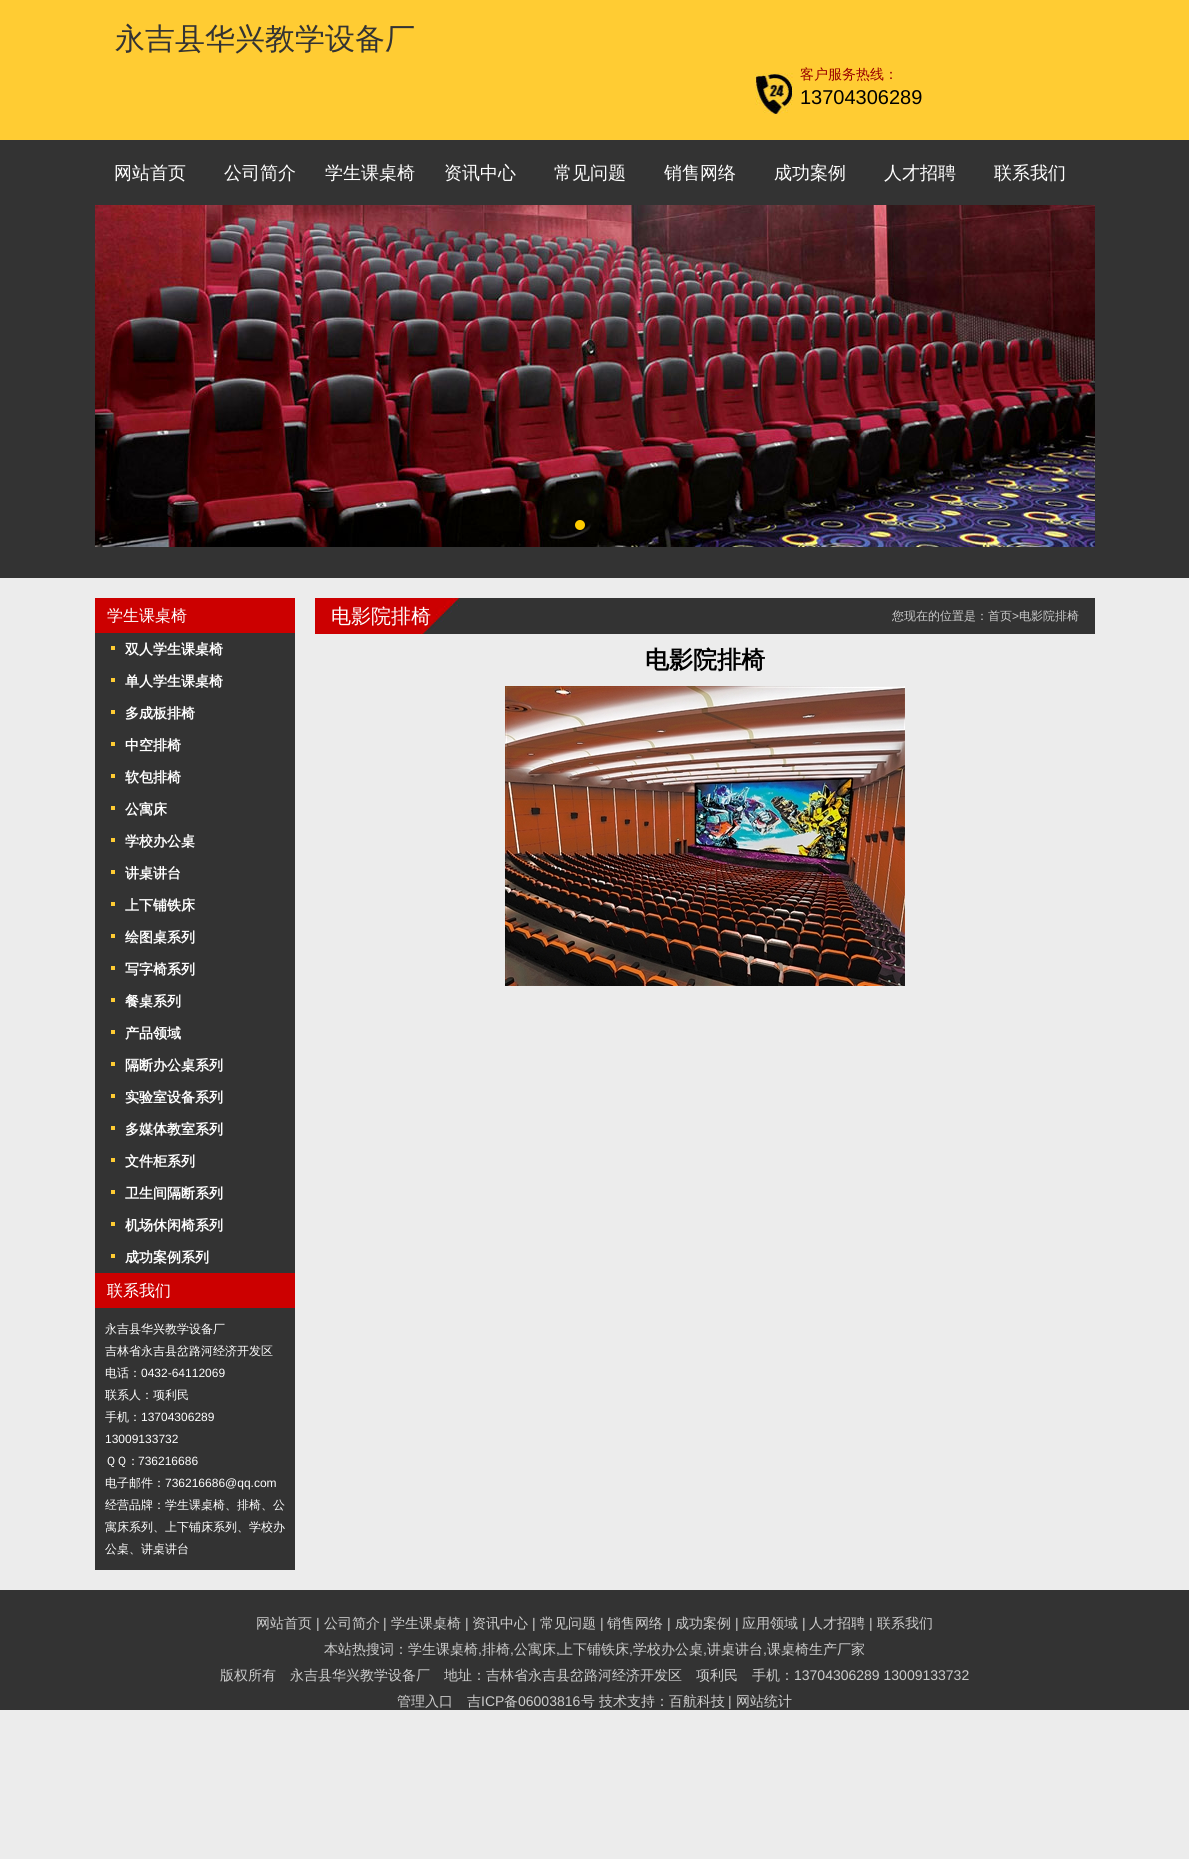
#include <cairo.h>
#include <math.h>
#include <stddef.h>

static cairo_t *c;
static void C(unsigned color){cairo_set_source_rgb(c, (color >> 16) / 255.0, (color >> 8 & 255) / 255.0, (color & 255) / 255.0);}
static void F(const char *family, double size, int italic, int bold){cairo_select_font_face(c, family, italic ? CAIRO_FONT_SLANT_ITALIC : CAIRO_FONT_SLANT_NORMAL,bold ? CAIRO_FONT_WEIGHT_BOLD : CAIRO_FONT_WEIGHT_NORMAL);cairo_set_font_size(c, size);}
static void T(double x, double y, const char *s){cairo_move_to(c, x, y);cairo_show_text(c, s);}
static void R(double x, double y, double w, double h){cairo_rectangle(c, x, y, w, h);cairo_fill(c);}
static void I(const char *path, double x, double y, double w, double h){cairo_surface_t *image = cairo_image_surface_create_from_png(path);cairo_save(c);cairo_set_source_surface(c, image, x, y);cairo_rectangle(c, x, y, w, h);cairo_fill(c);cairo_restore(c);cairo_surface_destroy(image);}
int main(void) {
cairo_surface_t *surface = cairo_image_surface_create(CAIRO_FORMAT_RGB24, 1189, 1859);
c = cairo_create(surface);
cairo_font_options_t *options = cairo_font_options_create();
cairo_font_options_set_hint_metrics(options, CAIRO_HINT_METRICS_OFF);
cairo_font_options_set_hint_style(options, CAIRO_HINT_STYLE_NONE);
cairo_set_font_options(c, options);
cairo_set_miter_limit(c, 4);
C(0xececec);
cairo_paint(c);
C(0xffcc33);
R(0,0,1189,140);
F("WenQuanYi Zen Hei Medium",30,0,0);
C(0x333333);
T(115,49,"永吉县华兴教学设备厂");
I("1.png",755,73,38,42);
F("WenQuanYi Zen Hei Medium",14,0,0);
C(0x990000);
T(800,79,"客户服务热线：");
F("Liberation Sans",20,0,0);
C(0x000000);
T(800,104,"13704306289");
C(0x333333);
R(0,140,1189,438);
F("WenQuanYi Zen Hei Medium",18,0,0);
C(0xffffff);
T(114,179,"网站首页");
T(224,179,"公司简介");
T(325,179,"学生课桌椅");
T(444,179,"资讯中心");
T(554,179,"常见问题");
T(664,179,"销售网络");
T(774,179,"成功案例");
T(884,179,"人才招聘");
T(994,179,"联系我们");
I("2.png",95,205,1000,342);
I("3.png",575,520,10,10);
C(0x333333);
R(95,633,200,937);
C(0xcc0000);
R(95,598,200,35);
F("WenQuanYi Zen Hei Medium",16,0,0);
C(0xffffff);
T(107,621,"学生课桌椅");
C(0xffcc33);
R(111,646,4,4);
F("WenQuanYi Zen Hei",14,0,1);
C(0xffffff);
T(125,654,"双人学生课桌椅");
C(0xffcc33);
R(111,678,4,4);
C(0xffffff);
T(125,686,"单人学生课桌椅");
C(0xffcc33);
R(111,710,4,4);
C(0xffffff);
T(125,718,"多成板排椅");
C(0xffcc33);
R(111,742,4,4);
C(0xffffff);
T(125,750,"中空排椅");
C(0xffcc33);
R(111,774,4,4);
C(0xffffff);
T(125,782,"软包排椅");
C(0xffcc33);
R(111,806,4,4);
C(0xffffff);
T(125,814,"公寓床");
C(0xffcc33);
R(111,838,4,4);
C(0xffffff);
T(125,846,"学校办公桌");
C(0xffcc33);
R(111,870,4,4);
C(0xffffff);
T(125,878,"讲桌讲台");
C(0xffcc33);
R(111,902,4,4);
C(0xffffff);
T(125,910,"上下铺铁床");
C(0xffcc33);
R(111,934,4,4);
C(0xffffff);
T(125,942,"绘图桌系列");
C(0xffcc33);
R(111,966,4,4);
C(0xffffff);
T(125,974,"写字椅系列");
C(0xffcc33);
R(111,998,4,4);
C(0xffffff);
T(125,1006,"餐桌系列");
C(0xffcc33);
R(111,1030,4,4);
C(0xffffff);
T(125,1038,"产品领域");
C(0xffcc33);
R(111,1062,4,4);
C(0xffffff);
T(125,1070,"隔断办公桌系列");
C(0xffcc33);
R(111,1094,4,4);
C(0xffffff);
T(125,1102,"实验室设备系列");
C(0xffcc33);
R(111,1126,4,4);
C(0xffffff);
T(125,1134,"多媒体教室系列");
C(0xffcc33);
R(111,1158,4,4);
C(0xffffff);
T(125,1166,"文件柜系列");
C(0xffcc33);
R(111,1190,4,4);
C(0xffffff);
T(125,1198,"卫生间隔断系列");
C(0xffcc33);
R(111,1222,4,4);
C(0xffffff);
T(125,1230,"机场休闲椅系列");
C(0xffcc33);
R(111,1254,4,4);
C(0xffffff);
T(125,1262,"成功案例系列");
C(0xcc0000);
R(95,1273,200,35);
F("WenQuanYi Zen Hei Medium",16,0,0);
C(0xffffff);
T(107,1296,"联系我们");
F("WenQuanYi Zen Hei Medium",12,0,0);
T(105,1333,"永吉县华兴教学设备厂");
T(105,1355,"吉林省永吉县岔路河经济开发区");
T(105,1377,"电话：");
F("Liberation Sans",12,0,0);
T(141,1377,"0432-64112069");
F("WenQuanYi Zen Hei Medium",12,0,0);
T(105,1399,"联系人：项利民");
T(105,1421,"手机：");
F("Liberation Sans",12,0,0);
T(141,1421,"13704306289");
T(105,1443,"13009133732");
F("WenQuanYi Zen Hei Medium",12,0,0);
T(105,1465,"ＱＱ：");
F("Liberation Sans",12,0,0);
T(138,1465,"736216686");
F("WenQuanYi Zen Hei Medium",12,0,0);
T(105,1487,"电子邮件：");
F("Liberation Sans",12,0,0);
T(165,1487,"736216686@qq.com");
F("WenQuanYi Zen Hei Medium",12,0,0);
T(105,1509,"经营品牌：学生课桌椅、排椅、公");
T(105,1531,"寓床系列、上下铺床系列、学校办");
T(105,1553,"公桌、讲桌讲台");
C(0x333333);
R(459,598,636,36);
I("4.png",315,598,144,36);
F("WenQuanYi Zen Hei Medium",20,0,0);
C(0xffffff);
T(331,623,"电影院排椅");
F("WenQuanYi Zen Hei Medium",12,0,0);
C(0xcccccc);
T(892,620,"您现在的位置是：首页");
F("Liberation Sans",12,0,0);
T(1012,620,">");
F("WenQuanYi Zen Hei Medium",12,0,0);
T(1019,620,"电影院排椅");
F("WenQuanYi Zen Hei",24,0,1);
C(0x000000);
T(645,668,"电影院排椅");
I("5.png",505,686,400,300);
C(0x333333);
R(0,1590,1189,120);
F("WenQuanYi Zen Hei Medium",14,0,0);
C(0xcccccc);
T(256,1628,"网站首页");
F("Liberation Sans",14,0,0);
T(316,1628,"|");
F("WenQuanYi Zen Hei Medium",14,0,0);
T(324,1628,"公司简介");
F("Liberation Sans",14,0,0);
T(383,1628,"|");
F("WenQuanYi Zen Hei Medium",14,0,0);
T(391,1628,"学生课桌椅");
F("Liberation Sans",14,0,0);
T(465,1628,"|");
F("WenQuanYi Zen Hei Medium",14,0,0);
T(472,1628,"资讯中心");
F("Liberation Sans",14,0,0);
T(532,1628,"|");
F("WenQuanYi Zen Hei Medium",14,0,0);
T(540,1628,"常见问题");
F("Liberation Sans",14,0,0);
T(600,1628,"|");
F("WenQuanYi Zen Hei Medium",14,0,0);
T(607,1628,"销售网络");
F("Liberation Sans",14,0,0);
T(667,1628,"|");
F("WenQuanYi Zen Hei Medium",14,0,0);
T(675,1628,"成功案例");
F("Liberation Sans",14,0,0);
T(735,1628,"|");
F("WenQuanYi Zen Hei Medium",14,0,0);
T(742,1628,"应用领域");
F("Liberation Sans",14,0,0);
T(802,1628,"|");
F("WenQuanYi Zen Hei Medium",14,0,0);
T(809,1628,"人才招聘");
F("Liberation Sans",14,0,0);
T(869,1628,"|");
F("WenQuanYi Zen Hei Medium",14,0,0);
T(877,1628,"联系我们");
T(324,1654,"本站热搜词：学生课桌椅");
F("Liberation Sans",14,0,0);
T(478,1654,",");
F("WenQuanYi Zen Hei Medium",14,0,0);
T(482,1654,"排椅");
F("Liberation Sans",14,0,0);
T(510,1654,",");
F("WenQuanYi Zen Hei Medium",14,0,0);
T(514,1654,"公寓床");
F("Liberation Sans",14,0,0);
T(556,1654,",");
F("WenQuanYi Zen Hei Medium",14,0,0);
T(559,1654,"上下铺铁床");
F("Liberation Sans",14,0,0);
T(629,1654,",");
F("WenQuanYi Zen Hei Medium",14,0,0);
T(633,1654,"学校办公桌");
F("Liberation Sans",14,0,0);
T(703,1654,",");
F("WenQuanYi Zen Hei Medium",14,0,0);
T(707,1654,"讲桌讲台");
F("Liberation Sans",14,0,0);
T(763,1654,",");
F("WenQuanYi Zen Hei Medium",14,0,0);
T(767,1654,"课桌椅生产厂家");
T(220,1680,"版权所有　永吉县华兴教学设备厂　地址：吉林省永吉县岔路河经济开发区　项利民　手机：");
F("Liberation Sans",14,0,0);
T(794,1680,"13704306289 13009133732");
F("WenQuanYi Zen Hei Medium",14,0,0);
T(397,1706,"管理入口　吉");
F("Liberation Sans",14,0,0);
T(481,1706,"ICP");
F("WenQuanYi Zen Hei Medium",14,0,0);
T(504,1706,"备");
F("Liberation Sans",14,0,0);
T(518,1706,"06003816");
F("WenQuanYi Zen Hei Medium",14,0,0);
T(581,1706,"号");
T(599,1706,"技术支持：百航科技");
F("Liberation Sans",14,0,0);
T(728,1706,"|");
F("WenQuanYi Zen Hei Medium",14,0,0);
T(736,1706,"网站统计");
cairo_surface_write_to_png(surface, "o.png");
cairo_font_options_destroy(options);
cairo_destroy(c);
cairo_surface_destroy(surface);
return 0;
}
